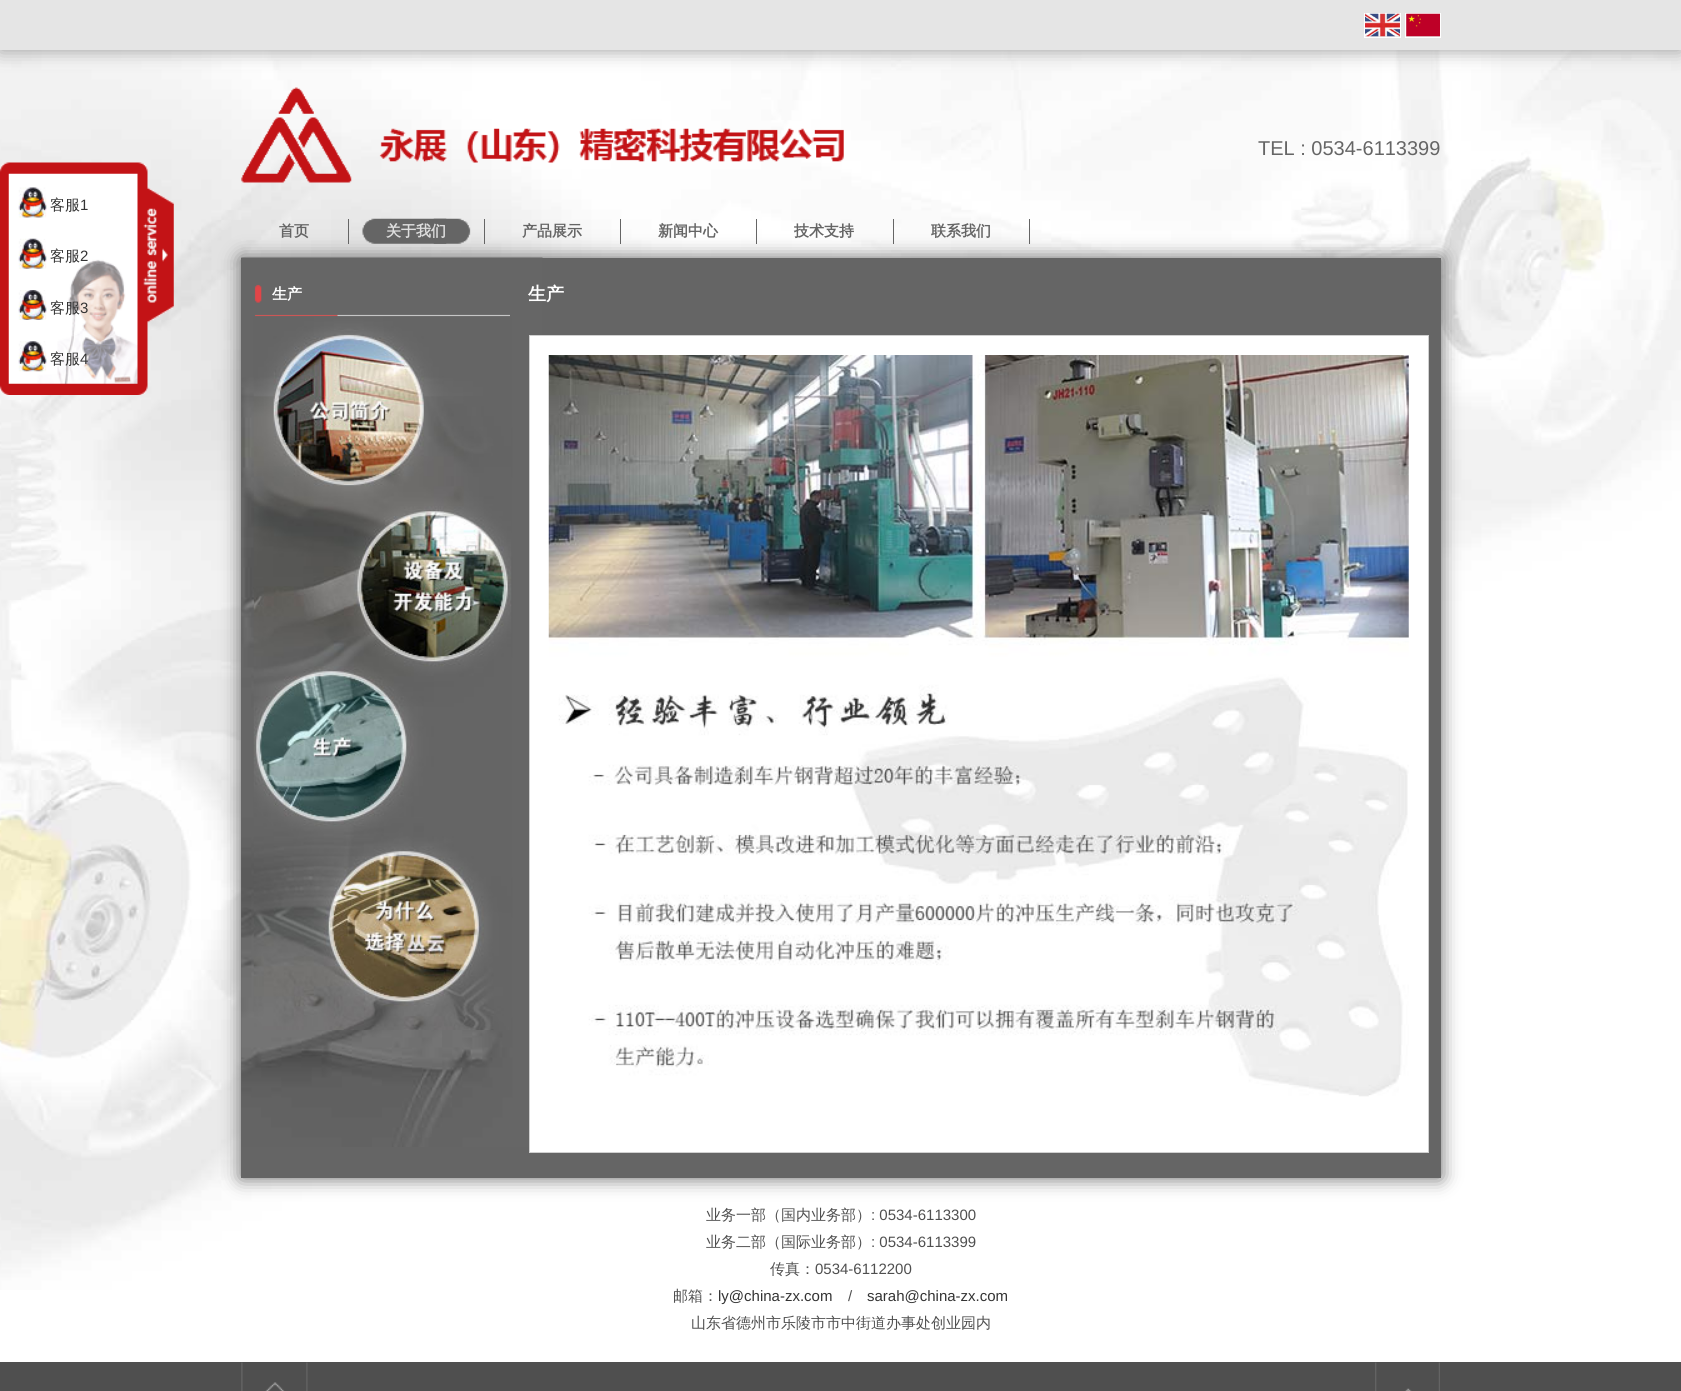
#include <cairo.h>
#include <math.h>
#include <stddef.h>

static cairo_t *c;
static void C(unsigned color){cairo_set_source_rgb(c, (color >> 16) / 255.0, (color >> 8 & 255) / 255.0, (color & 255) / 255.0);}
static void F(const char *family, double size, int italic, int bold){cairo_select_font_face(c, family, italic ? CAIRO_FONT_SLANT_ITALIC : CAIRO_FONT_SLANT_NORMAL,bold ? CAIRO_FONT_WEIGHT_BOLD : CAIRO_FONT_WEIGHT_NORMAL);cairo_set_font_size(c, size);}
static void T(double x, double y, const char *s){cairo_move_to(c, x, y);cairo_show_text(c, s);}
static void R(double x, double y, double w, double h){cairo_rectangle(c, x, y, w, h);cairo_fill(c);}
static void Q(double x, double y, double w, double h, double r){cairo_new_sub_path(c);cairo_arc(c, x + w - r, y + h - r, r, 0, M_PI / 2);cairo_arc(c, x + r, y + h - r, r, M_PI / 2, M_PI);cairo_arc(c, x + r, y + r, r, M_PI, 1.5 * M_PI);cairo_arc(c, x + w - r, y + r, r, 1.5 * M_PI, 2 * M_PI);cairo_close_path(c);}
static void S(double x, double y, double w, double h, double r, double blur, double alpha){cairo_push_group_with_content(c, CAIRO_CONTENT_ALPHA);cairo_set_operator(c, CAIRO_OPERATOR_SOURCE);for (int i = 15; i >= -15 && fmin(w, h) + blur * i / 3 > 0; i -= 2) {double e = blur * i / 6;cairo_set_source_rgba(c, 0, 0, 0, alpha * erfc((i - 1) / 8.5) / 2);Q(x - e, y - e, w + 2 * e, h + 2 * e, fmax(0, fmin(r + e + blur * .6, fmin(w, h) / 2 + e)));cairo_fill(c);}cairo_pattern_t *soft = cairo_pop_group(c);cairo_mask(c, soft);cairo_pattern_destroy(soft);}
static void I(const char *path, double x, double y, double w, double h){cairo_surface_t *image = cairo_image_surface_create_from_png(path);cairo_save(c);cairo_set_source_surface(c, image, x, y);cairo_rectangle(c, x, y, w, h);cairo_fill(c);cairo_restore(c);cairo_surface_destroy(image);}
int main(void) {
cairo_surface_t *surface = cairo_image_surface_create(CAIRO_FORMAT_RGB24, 1681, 1391);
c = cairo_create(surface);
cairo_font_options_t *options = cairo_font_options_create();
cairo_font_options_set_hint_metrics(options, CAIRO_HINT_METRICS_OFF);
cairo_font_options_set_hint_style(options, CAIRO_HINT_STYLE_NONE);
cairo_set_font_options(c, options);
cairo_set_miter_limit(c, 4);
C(0xffffff);
cairo_paint(c);
I("1.png",0,50,1681,1240);
C(0x999999);
S(0,0,1681,50,0,9.5,1);
C(0xe5e5e5);
R(0,0,1681,50);
cairo_rectangle(c,1364.5,13.5,36,24);
C(0xffffff);
cairo_set_line_width(c,1);
cairo_stroke(c);
I("2.png",1365,13,35,24);
cairo_rectangle(c,1405.5,13.5,35,24);
cairo_stroke(c);
I("3.png",1406,13,34,24);
I("4.png",0,162,174,233);
I("5.png",18,187,29,31);
F("WenQuanYi Zen Hei Medium",15,0,0);
C(0x333333);
T(50,210,"客服");
F("Liberation Sans",15,0,0);
T(80,210,"1");
I("6.png",18,238,29,31);
F("WenQuanYi Zen Hei Medium",15,0,0);
T(50,261,"客服");
F("Liberation Sans",15,0,0);
T(80,261,"2");
I("7.png",18,290,29,30);
F("WenQuanYi Zen Hei Medium",15,0,0);
T(50,313,"客服");
F("Liberation Sans",15,0,0);
T(80,313,"3");
I("8.png",18,341,29,31);
F("WenQuanYi Zen Hei Medium",15,0,0);
T(50,364,"客服");
F("Liberation Sans",15,0,0);
T(80,364,"4");
I("9.png",241,87,111,96);
I("10.png",379,128,465,35);
F("Liberation Sans",20,0,0);
C(0x656565);
T(1258,155,"TEL : 0534-6113399");
C(0x656565);
S(241,258,1200,920,0,9.5,1);
C(0x656565);
R(348,219,1,25);
F("WenQuanYi Zen Hei",15,0,1);
T(279,236,"首页");
R(484,219,1,25);
I("11.png",433,218,38,26);
I("12.png",362,218,85,26);
C(0xdddddd);
T(386,236,"关于我们");
C(0x656565);
R(620,219,1,25);
T(522,236,"产品展示");
R(756,219,1,25);
T(658,236,"新闻中心");
R(893,219,1,25);
T(794,236,"技术支持");
R(1029,219,1,25);
T(931,236,"联系我们");
R(241,258,1200,920);
I("13.png",241,257,302,890);
I("14.png",254,284,256,33);
C(0xffffff);
T(272,299,"生产");
I("15.png",253,316,259,714);
F("WenQuanYi Zen Hei",18,0,1);
T(528,300,"生产");
cairo_rectangle(c,529.5,335.5,899,817);
cairo_fill_preserve(c);
C(0xd0d0d0);
cairo_stroke(c);
I("16.png",548,355,861,742);
F("WenQuanYi Zen Hei Medium",15,0,0);
C(0x4f4f4f);
T(706,1220,"业务一部（国内业务部）");
F("Liberation Sans",15,0,0);
T(871,1220,": 0534-6113300");
F("WenQuanYi Zen Hei Medium",15,0,0);
T(706,1247,"业务二部（国际业务部）");
F("Liberation Sans",15,0,0);
T(871,1247,": 0534-6113399");
F("WenQuanYi Zen Hei Medium",15,0,0);
T(770,1274,"传真：");
F("Liberation Sans",15,0,0);
T(815,1274,"0534-6112200");
F("WenQuanYi Zen Hei Medium",15,0,0);
T(673,1301,"邮箱：");
F("Liberation Sans",15,0,0);
C(0x333333);
T(718,1301,"ly@china-zx.com");
C(0x4f4f4f);
T(848,1301,"/");
C(0x333333);
T(867,1301,"sarah@china-zx.com");
F("WenQuanYi Zen Hei Medium",15,0,0);
C(0x4f4f4f);
T(691,1328,"山东省德州市乐陵市市中街道办事处创业园内");
R(0,1362,1681,29);
I("17.png",241,1362,67,29);
I("18.png",1375,1362,65,29);
cairo_surface_write_to_png(surface, "o.png");
cairo_font_options_destroy(options);
cairo_destroy(c);
cairo_surface_destroy(surface);
return 0;
}
